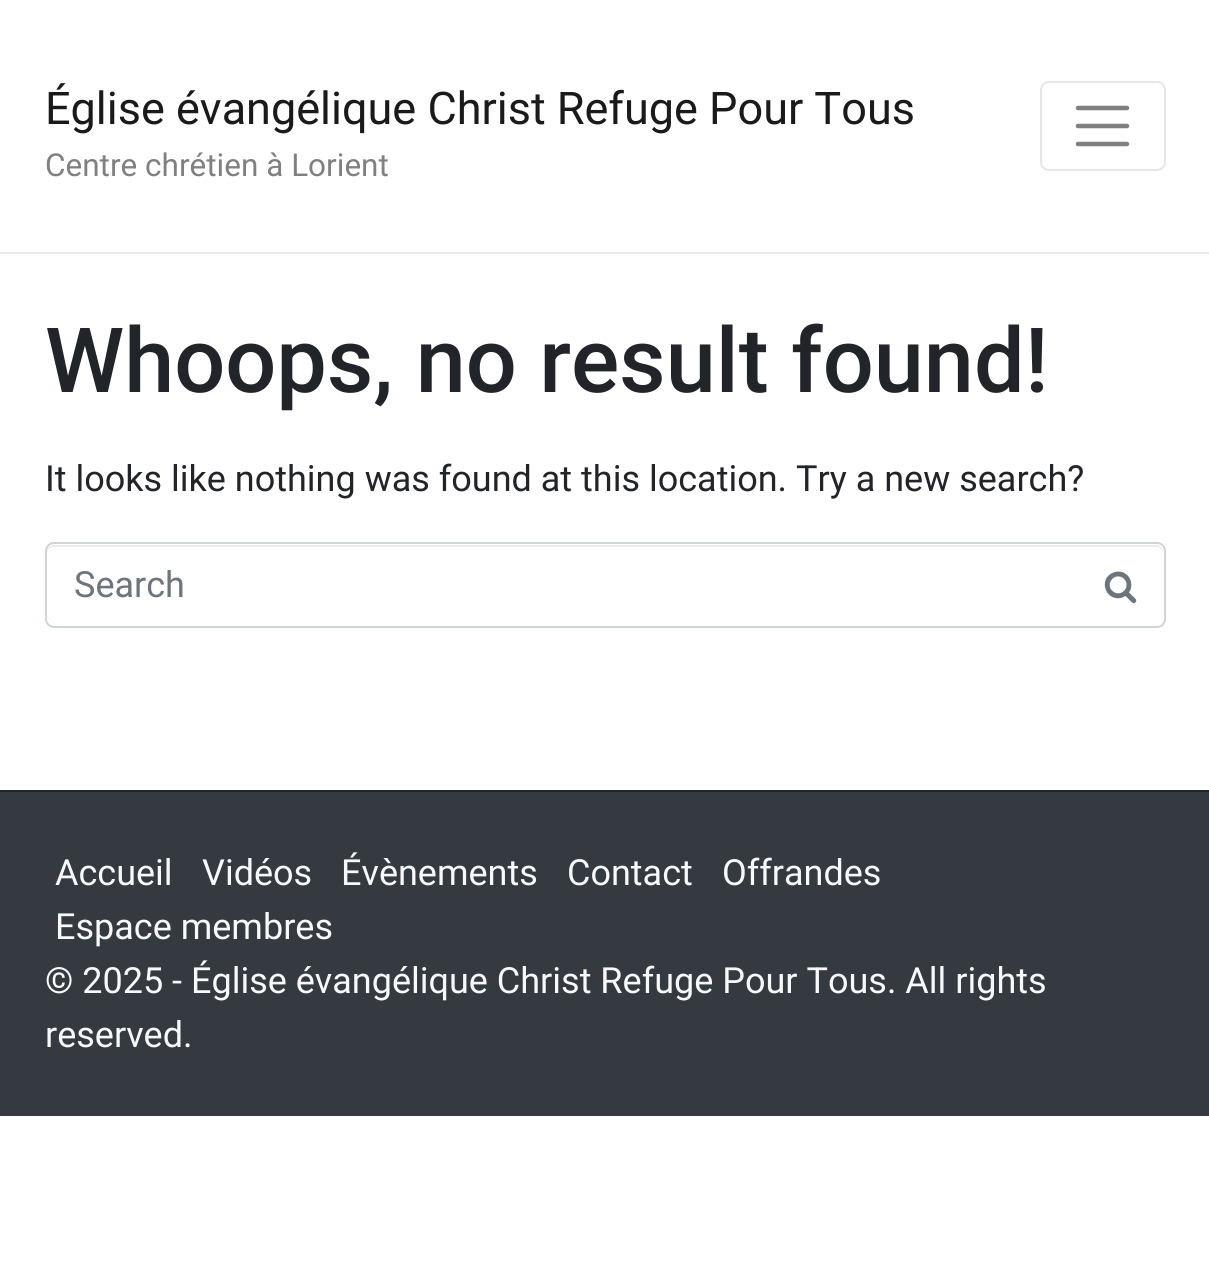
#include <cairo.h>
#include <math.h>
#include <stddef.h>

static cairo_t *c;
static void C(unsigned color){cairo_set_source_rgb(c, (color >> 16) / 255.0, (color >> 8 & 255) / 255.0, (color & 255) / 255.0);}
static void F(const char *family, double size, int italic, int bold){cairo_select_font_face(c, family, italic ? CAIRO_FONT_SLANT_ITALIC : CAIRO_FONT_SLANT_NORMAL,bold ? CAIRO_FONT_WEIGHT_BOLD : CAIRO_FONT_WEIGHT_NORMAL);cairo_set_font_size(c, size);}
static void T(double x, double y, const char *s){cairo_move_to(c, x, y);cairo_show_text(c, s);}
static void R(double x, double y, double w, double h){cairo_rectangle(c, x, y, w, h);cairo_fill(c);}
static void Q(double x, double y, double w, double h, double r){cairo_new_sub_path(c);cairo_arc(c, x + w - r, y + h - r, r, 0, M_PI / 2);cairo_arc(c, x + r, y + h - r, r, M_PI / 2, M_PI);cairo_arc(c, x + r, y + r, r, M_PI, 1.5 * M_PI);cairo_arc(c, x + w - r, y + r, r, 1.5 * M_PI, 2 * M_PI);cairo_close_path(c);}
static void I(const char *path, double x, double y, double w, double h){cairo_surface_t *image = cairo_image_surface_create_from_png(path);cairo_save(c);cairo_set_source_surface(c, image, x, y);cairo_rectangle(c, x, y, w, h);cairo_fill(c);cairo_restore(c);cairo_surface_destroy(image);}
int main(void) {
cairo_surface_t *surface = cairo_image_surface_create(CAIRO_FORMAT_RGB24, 1209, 1267);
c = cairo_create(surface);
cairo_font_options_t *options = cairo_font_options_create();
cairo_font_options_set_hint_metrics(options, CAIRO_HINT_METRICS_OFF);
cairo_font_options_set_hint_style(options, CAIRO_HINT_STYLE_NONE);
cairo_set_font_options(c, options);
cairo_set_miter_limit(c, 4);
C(0xffffff);
cairo_paint(c);
C(0xe9ecef);
R(0,252,1209,2);
F("Roboto",45,0,0);
C(0x1a1a1a);
T(45,124,"Église évangélique Christ Refuge Pour Tous");
F("Roboto",31.5,0,0);
C(0x808080);
T(45,176,"Centre chrétien à Lorient");
Q(1041,82,124,88,8);
C(0xe6e6e6);
cairo_stroke(c);
cairo_new_path(c);
cairo_move_to(c,1078,108);
cairo_line_to(c,1127,108);
cairo_move_to(c,1078,126);
cairo_line_to(c,1127,126);
cairo_move_to(c,1078,144);
cairo_line_to(c,1127,144);
C(0x808080);
cairo_set_line_width(c,4.5);
cairo_set_line_cap(c,CAIRO_LINE_CAP_ROUND);
cairo_stroke(c);
F("Roboto Medium",90,0,0);
C(0x212529);
T(45,392,"Whoops, no result found!");
F("Roboto",36,0,0);
T(45,491,"It looks like nothing was found at this location. Try a new search?");
C(0xececec);
cairo_new_path(c);
cairo_move_to(c,54,547);
cairo_line_to(c,1156,547);
cairo_curve_to(c,1160,547,1163,550,1163,554);
cairo_line_to(c,1163,552);
cairo_curve_to(c,1163,548,1160,545,1156,545);
cairo_line_to(c,54,545);
cairo_curve_to(c,50,545,47,548,47,552);
cairo_line_to(c,47,554);
cairo_curve_to(c,47,550,50,547,54,547);
cairo_close_path(c);
cairo_fill(c);
Q(46,543,1119,84,8);
C(0xced4da);
cairo_set_line_width(c,2);
cairo_set_line_cap(c,CAIRO_LINE_CAP_BUTT);
cairo_stroke(c);
C(0x6c757d);
T(74,597,"Search");
I("1.png",1104,571,33,33);
C(0x343a40);
R(0,792,1209,324);
C(0x212529);
R(0,790,1209,2);
C(0xf8f9fa);
T(55,885,"Accueil");
T(202,885,"Vidéos");
T(341,885,"Évènements");
T(567,885,"Contact");
T(722,885,"Offrandes");
T(55,939,"Espace membres");
T(45,993,"© 2025 - Église évangélique Christ Refuge Pour Tous. All rights");
T(45,1047,"reserved.");
cairo_surface_write_to_png(surface, "o.png");
cairo_font_options_destroy(options);
cairo_destroy(c);
cairo_surface_destroy(surface);
return 0;
}
